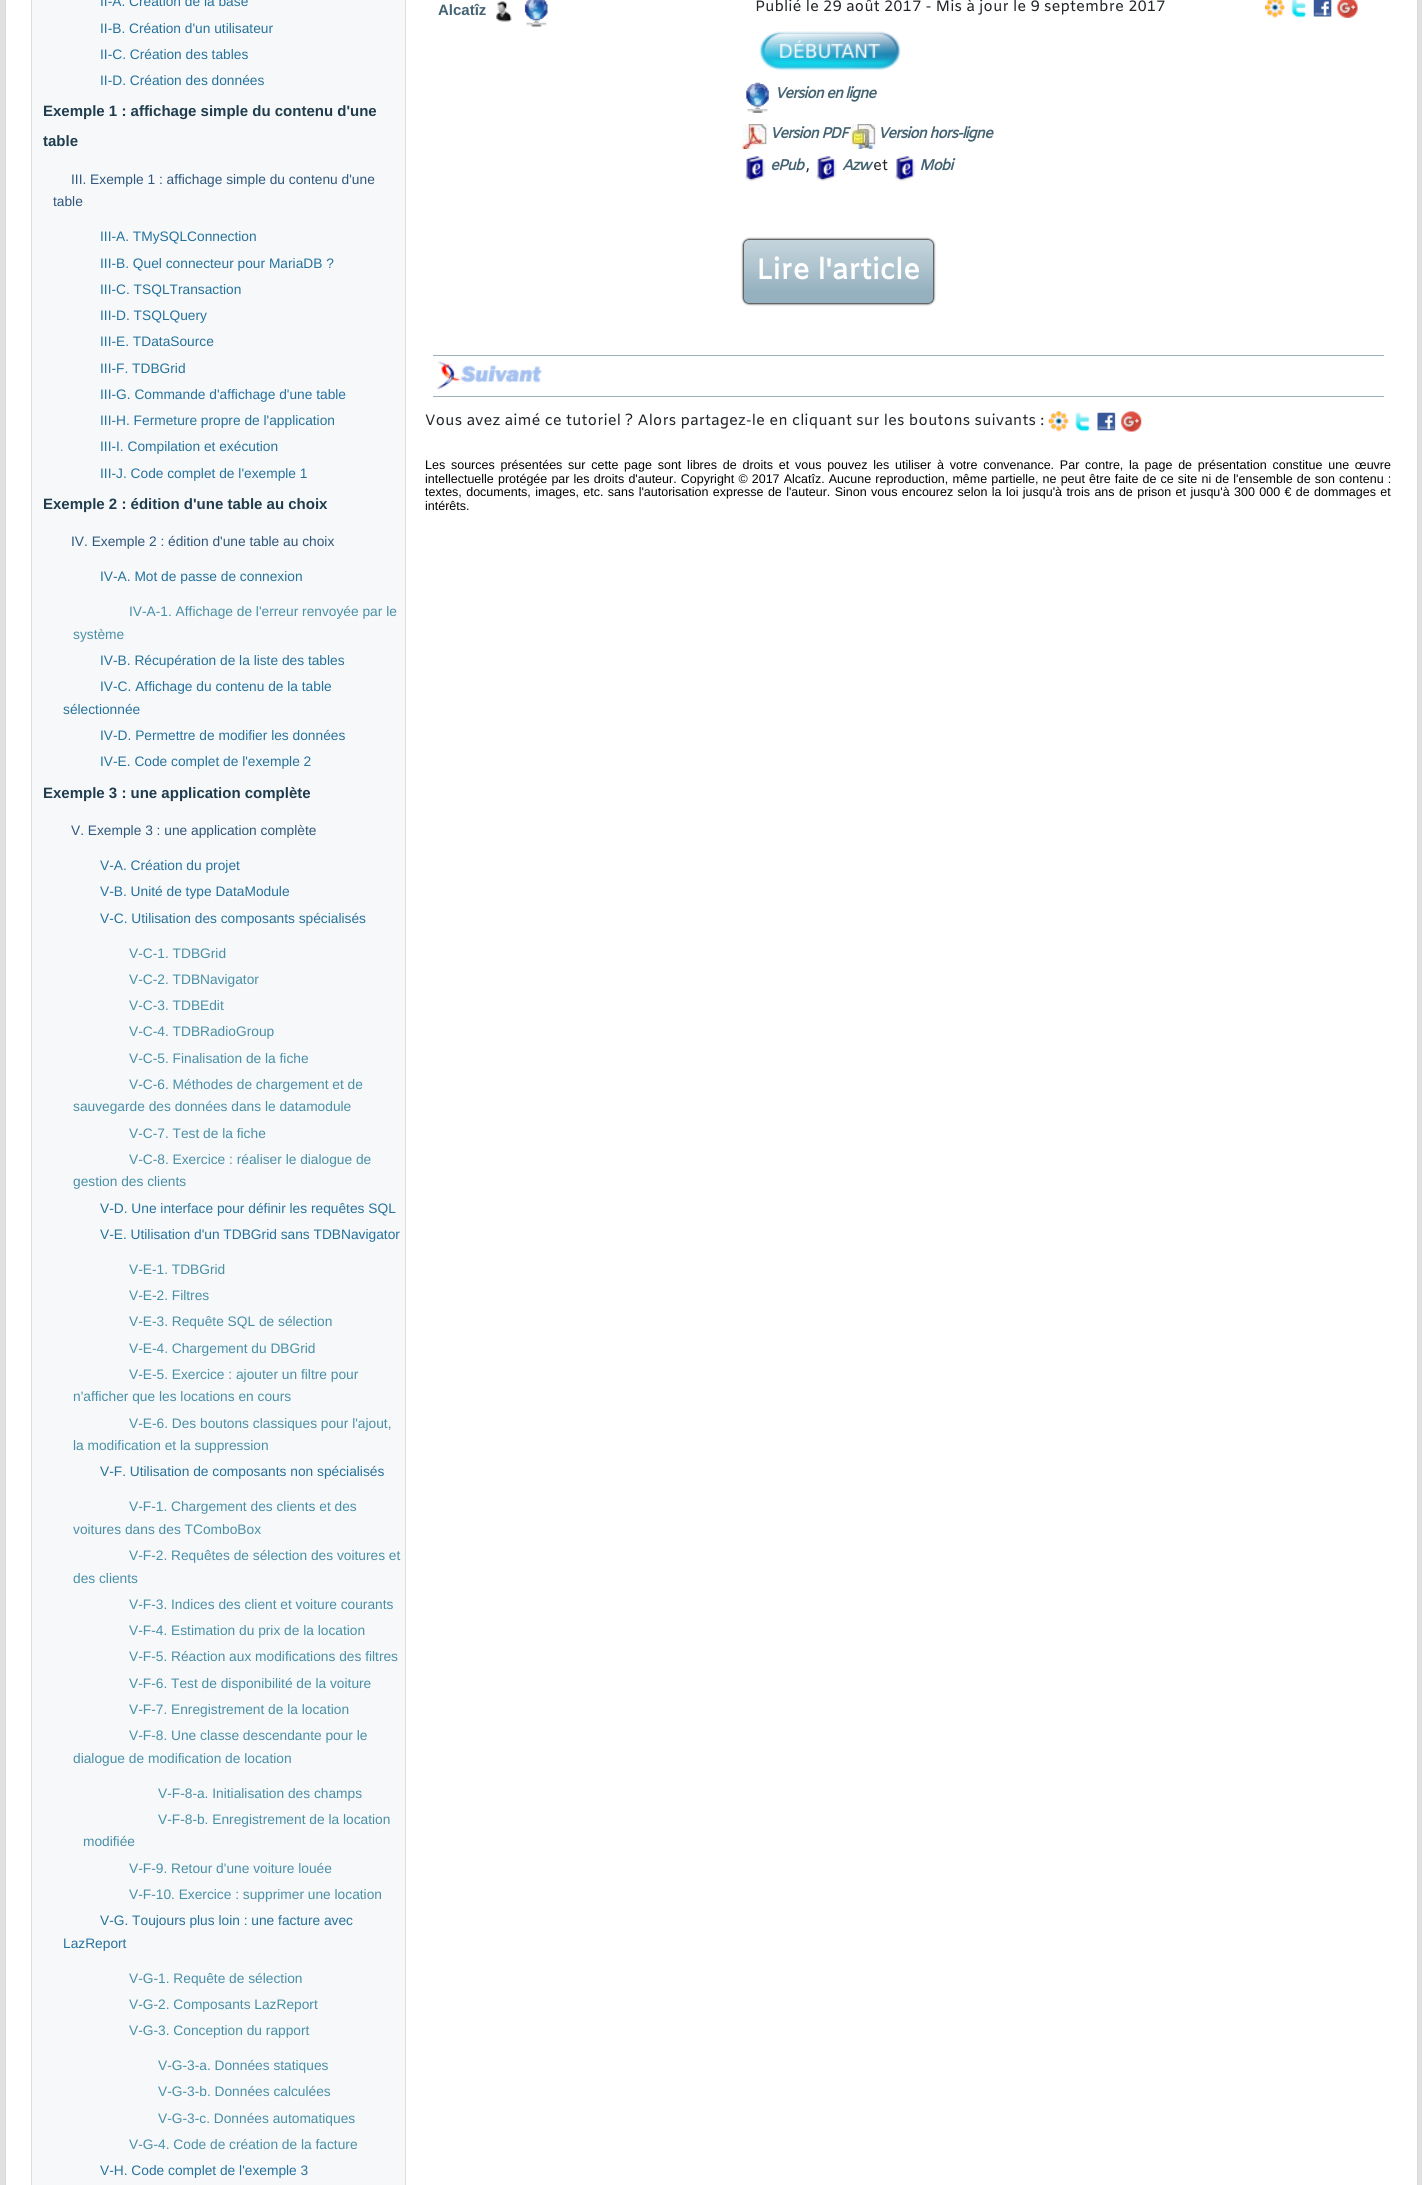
#include <cairo.h>
#include <math.h>
#include <stddef.h>

static cairo_t *c;
static void C(unsigned color){cairo_set_source_rgb(c, (color >> 16) / 255.0, (color >> 8 & 255) / 255.0, (color & 255) / 255.0);}
static void F(const char *family, double size, int italic, int bold){cairo_select_font_face(c, family, italic ? CAIRO_FONT_SLANT_ITALIC : CAIRO_FONT_SLANT_NORMAL,bold ? CAIRO_FONT_WEIGHT_BOLD : CAIRO_FONT_WEIGHT_NORMAL);cairo_set_font_size(c, size);}
static void T(double x, double y, const char *s){cairo_move_to(c, x, y);cairo_show_text(c, s);}
static void L(double x, double y, const char *s, double letter, double word){cairo_move_to(c, x, y);while (*s) {char ch[5] = {0};int n = 0;do ch[n++] = *s++; while ((*s & 0xC0) == 0x80);cairo_show_text(c, ch);cairo_rel_move_to(c, letter + word * (*ch == ' '), 0);}}
static void R(double x, double y, double w, double h){cairo_rectangle(c, x, y, w, h);cairo_fill(c);}
static void Q(double x, double y, double w, double h, double r){cairo_new_sub_path(c);cairo_arc(c, x + w - r, y + h - r, r, 0, M_PI / 2);cairo_arc(c, x + r, y + h - r, r, M_PI / 2, M_PI);cairo_arc(c, x + r, y + r, r, M_PI, 1.5 * M_PI);cairo_arc(c, x + w - r, y + r, r, 1.5 * M_PI, 2 * M_PI);cairo_close_path(c);}
static void S(double x, double y, double w, double h, double r, double blur, double alpha){cairo_push_group_with_content(c, CAIRO_CONTENT_ALPHA);cairo_set_operator(c, CAIRO_OPERATOR_SOURCE);for (int i = 15; i >= -15 && fmin(w, h) + blur * i / 3 > 0; i -= 2) {double e = blur * i / 6;cairo_set_source_rgba(c, 0, 0, 0, alpha * erfc((i - 1) / 8.5) / 2);Q(x - e, y - e, w + 2 * e, h + 2 * e, fmax(0, fmin(r + e + blur * .6, fmin(w, h) / 2 + e)));cairo_fill(c);}cairo_pattern_t *soft = cairo_pop_group(c);cairo_mask(c, soft);cairo_pattern_destroy(soft);}
static void I(const char *path, double x, double y, double w, double h){cairo_surface_t *image = cairo_image_surface_create_from_png(path);cairo_save(c);cairo_set_source_surface(c, image, x, y);cairo_rectangle(c, x, y, w, h);cairo_fill(c);cairo_restore(c);cairo_surface_destroy(image);}
int main(void) {
cairo_surface_t *surface = cairo_image_surface_create(CAIRO_FORMAT_RGB24, 1422, 2185);
c = cairo_create(surface);
cairo_font_options_t *options = cairo_font_options_create();
cairo_font_options_set_hint_metrics(options, CAIRO_HINT_METRICS_OFF);
cairo_font_options_set_hint_style(options, CAIRO_HINT_STYLE_NONE);
cairo_set_font_options(c, options);
cairo_set_miter_limit(c, 4);
cairo_pattern_t *gradient;
C(0xe1e1e2);
cairo_paint(c);
C(0xffffff);
cairo_rectangle(c,5.5,-.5,1412,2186);
cairo_fill_preserve(c);
C(0xd7d9db);
cairo_set_line_width(c,1);
cairo_stroke(c);
C(0xf6f8f9);
cairo_rectangle(c,31.5,-.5,374,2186);
cairo_fill_preserve(c);
C(0xdddddd);
cairo_stroke(c);
F("Liberation Sans",13.75,0,0);
C(0x27729d);
T(100,6,"II-A. Création de la base");
T(100,33,"II-B. Création d'un utilisateur");
T(100,59,"II-C. Création des tables");
T(100,85,"II-D. Création des données");
F("Liberation Sans",15,0,1);
C(0x203d4f);
T(43,116,"Exemple 1 : affichage simple du contenu d'une");
T(43,146,"table");
F("Liberation Sans",13.75,0,0);
C(0x30577c);
T(71,184,"III. Exemple 1 : affichage simple du contenu d'une");
T(53,206,"table");
C(0x27729d);
T(100,241,"III-A. TMySQLConnection");
T(100,268,"III-B. Quel connecteur pour MariaDB ?");
T(100,294,"III-C. TSQLTransaction");
T(100,320,"III-D. TSQLQuery");
T(100,346,"III-E. TDataSource");
T(100,373,"III-F. TDBGrid");
T(100,399,"III-G. Commande d'affichage d'une table");
T(100,425,"III-H. Fermeture propre de l'application");
T(100,451,"III-I. Compilation et exécution");
T(100,478,"III-J. Code complet de l'exemple 1");
F("Liberation Sans",15,0,1);
C(0x203d4f);
T(43,509,"Exemple 2 : édition d'une table au choix");
F("Liberation Sans",13.75,0,0);
C(0x30577c);
T(71,546,"IV. Exemple 2 : édition d'une table au choix");
C(0x27729d);
T(100,581,"IV-A. Mot de passe de connexion");
C(0x4a8fa8);
T(129,616,"IV-A-1. Affichage de l'erreur renvoyée par le");
T(73,639,"système");
C(0x27729d);
T(100,665,"IV-B. Récupération de la liste des tables");
T(100,691,"IV-C. Affichage du contenu de la table");
T(63,714,"sélectionnée");
T(100,740,"IV-D. Permettre de modifier les données");
T(100,766,"IV-E. Code complet de l'exemple 2");
F("Liberation Sans",15,0,1);
C(0x203d4f);
T(43,798,"Exemple 3 : une application complète");
F("Liberation Sans",13.75,0,0);
C(0x30577c);
T(71,835,"V. Exemple 3 : une application complète");
C(0x27729d);
T(100,870,"V-A. Création du projet");
T(100,896,"V-B. Unité de type DataModule");
T(100,923,"V-C. Utilisation des composants spécialisés");
C(0x4a8fa8);
T(129,958,"V-C-1. TDBGrid");
T(129,984,"V-C-2. TDBNavigator");
T(129,1010,"V-C-3. TDBEdit");
T(129,1036,"V-C-4. TDBRadioGroup");
T(129,1063,"V-C-5. Finalisation de la fiche");
T(129,1089,"V-C-6. Méthodes de chargement et de");
T(73,1111,"sauvegarde des données dans le datamodule");
T(129,1138,"V-C-7. Test de la fiche");
T(129,1164,"V-C-8. Exercice : réaliser le dialogue de");
T(73,1186,"gestion des clients");
C(0x27729d);
T(100,1213,"V-D. Une interface pour définir les requêtes SQL");
T(100,1239,"V-E. Utilisation d'un TDBGrid sans TDBNavigator");
C(0x4a8fa8);
T(129,1274,"V-E-1. TDBGrid");
T(129,1300,"V-E-2. Filtres");
T(129,1326,"V-E-3. Requête SQL de sélection");
T(129,1353,"V-E-4. Chargement du DBGrid");
T(129,1379,"V-E-5. Exercice : ajouter un filtre pour");
T(73,1401,"n'afficher que les locations en cours");
T(129,1428,"V-E-6. Des boutons classiques pour l'ajout,");
T(73,1450,"la modification et la suppression");
C(0x27729d);
T(100,1476,"V-F. Utilisation de composants non spécialisés");
C(0x4a8fa8);
T(129,1511,"V-F-1. Chargement des clients et des");
T(73,1534,"voitures dans des TComboBox");
T(129,1560,"V-F-2. Requêtes de sélection des voitures et");
T(73,1583,"des clients");
T(129,1609,"V-F-3. Indices des client et voiture courants");
T(129,1635,"V-F-4. Estimation du prix de la location");
T(129,1661,"V-F-5. Réaction aux modifications des filtres");
T(129,1688,"V-F-6. Test de disponibilité de la voiture");
T(129,1714,"V-F-7. Enregistrement de la location");
T(129,1740,"V-F-8. Une classe descendante pour le");
T(73,1763,"dialogue de modification de location");
T(158,1798,"V-F-8-a. Initialisation des champs");
T(158,1824,"V-F-8-b. Enregistrement de la location");
T(83,1846,"modifiée");
T(129,1873,"V-F-9. Retour d'une voiture louée");
T(129,1899,"V-F-10. Exercice : supprimer une location");
C(0x27729d);
T(100,1925,"V-G. Toujours plus loin : une facture avec");
T(63,1948,"LazReport");
C(0x4a8fa8);
T(129,1983,"V-G-1. Requête de sélection");
T(129,2009,"V-G-2. Composants LazReport");
T(129,2035,"V-G-3. Conception du rapport");
T(158,2070,"V-G-3-a. Données statiques");
T(158,2096,"V-G-3-b. Données calculées");
T(158,2123,"V-G-3-c. Données automatiques");
T(129,2149,"V-G-4. Code de création de la facture");
C(0x27729d);
T(100,2175,"V-H. Code complet de l'exemple 3");
F("Liberation Sans",15,0,1);
C(0x446372);
T(438,15,"Alcatîz");
I("1.png",496,1,16,21);
I("2.png",524,0,24,27);
F("Amiko",15,0,0);
C(0x212529);
T(755,11,"Publié le 29 août 2017 - Mis à jour le 9 septembre 2017");
I("3.png",759,31,142,40);
I("4.png",746,82,23,31);
F("Amiko",15,1,1);
C(0x446372);
L(775,98,"Version en ligne",-1.25,0);
I("5.png",742,124,26,25);
L(770,138,"Version PDF",-1.25,0);
I("6.png",851,124,25,25);
L(878,138,"Version hors-ligne",-1.25,0);
I("7.png",745,156,21,26);
L(770,170,"ePub",-1.25,0);
F("Amiko",15,0,0);
C(0x212529);
T(806,170,",");
I("8.png",816,156,21,26);
F("Amiko",15,1,1);
C(0x446372);
L(842,170,"Azw",-1.25,0);
F("Amiko",15,0,0);
C(0x212529);
T(873,170,"et");
I("7.png",895,156,21,26);
F("Amiko",15,1,1);
C(0x446372);
L(919,170,"Mobi",-1.25,0);
cairo_save(c);
cairo_set_fill_rule(c,CAIRO_FILL_RULE_EVEN_ODD);
cairo_new_path(c);
cairo_move_to(c,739,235);
cairo_line_to(c,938,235);
cairo_line_to(c,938,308);
cairo_line_to(c,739,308);
cairo_close_path(c);
cairo_move_to(c,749,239);
cairo_line_to(c,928,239);
cairo_curve_to(c,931.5,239,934,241.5,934,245);
cairo_line_to(c,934,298);
cairo_curve_to(c,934,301.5,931.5,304,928,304);
cairo_line_to(c,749,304);
cairo_curve_to(c,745.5,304,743,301.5,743,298);
cairo_line_to(c,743,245);
cairo_curve_to(c,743,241.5,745.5,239,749,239);
cairo_close_path(c);
cairo_clip(c);
C(0x343434);
S(743,239,191,65,6,1,1);
cairo_restore(c);
cairo_set_source_rgba(c,0.659,0.749,0.796,0.6);
Q(743,239,191,65,6);
cairo_fill(c);
cairo_save(c);
Q(743,239,191,65,6);
cairo_clip(c);
gradient = cairo_pattern_create_linear(838,303,838,240);
cairo_pattern_add_color_stop_rgba(gradient,.2,0.584,0.694,0.749,1);
cairo_pattern_add_color_stop_rgba(gradient,1,0.659,0.749,0.796,.2);
cairo_set_source(c,gradient);
cairo_pattern_destroy(gradient);
R(743,240,191,63);
cairo_restore(c);
Q(743.5,239.5,190,64,5.5);
C(0x656565);
cairo_stroke(c);
F("Amiko",28.5,0,1);
C(0xffffff);
T(756,279,"Lire l'article");
I("9.png",1265,0,20,18);
I("10.png",1291,0,16,18);
I("11.png",1313,0,19,17);
I("12.png",1337,0,21,18);
C(0x9bb1bc);
R(433,355,951,1);
I("13.png",436,361,106,29);
R(433,396,951,1);
F("Amiko",15,0,0);
C(0x212529);
T(425,425,"Vous avez aimé ce tutoriel ? Alors partagez-le en cliquant sur les boutons suivants :");
I("14.png",1048,411,21,21);
I("15.png",1075,412,16,20);
I("16.png",1097,412,19,19);
I("17.png",1121,411,21,21);
F("Liberation Sans",12.5,0,0);
C(0x000000);
L(425,469,"Les sources présentées sur cette page sont libres de droits et vous pouvez les utiliser à votre convenance. Par contre, la page de présentation constitue une œuvre",0,2.3);
L(425,483,"intellectuelle protégée par les droits d'auteur. Copyright © 2017 Alcatîz. Aucune reproduction, même partielle, ne peut être faite de ce site ni de l'ensemble de son contenu :",0,.65);
L(425,496,"textes, documents, images, etc. sans l'autorisation expresse de l'auteur. Sinon vous encourez selon la loi jusqu'à trois ans de prison et jusqu'à 300 000 € de dommages et",0,.9);
T(425,510,"intérêts.");
cairo_surface_write_to_png(surface, "o.png");
cairo_font_options_destroy(options);
cairo_destroy(c);
cairo_surface_destroy(surface);
return 0;
}
